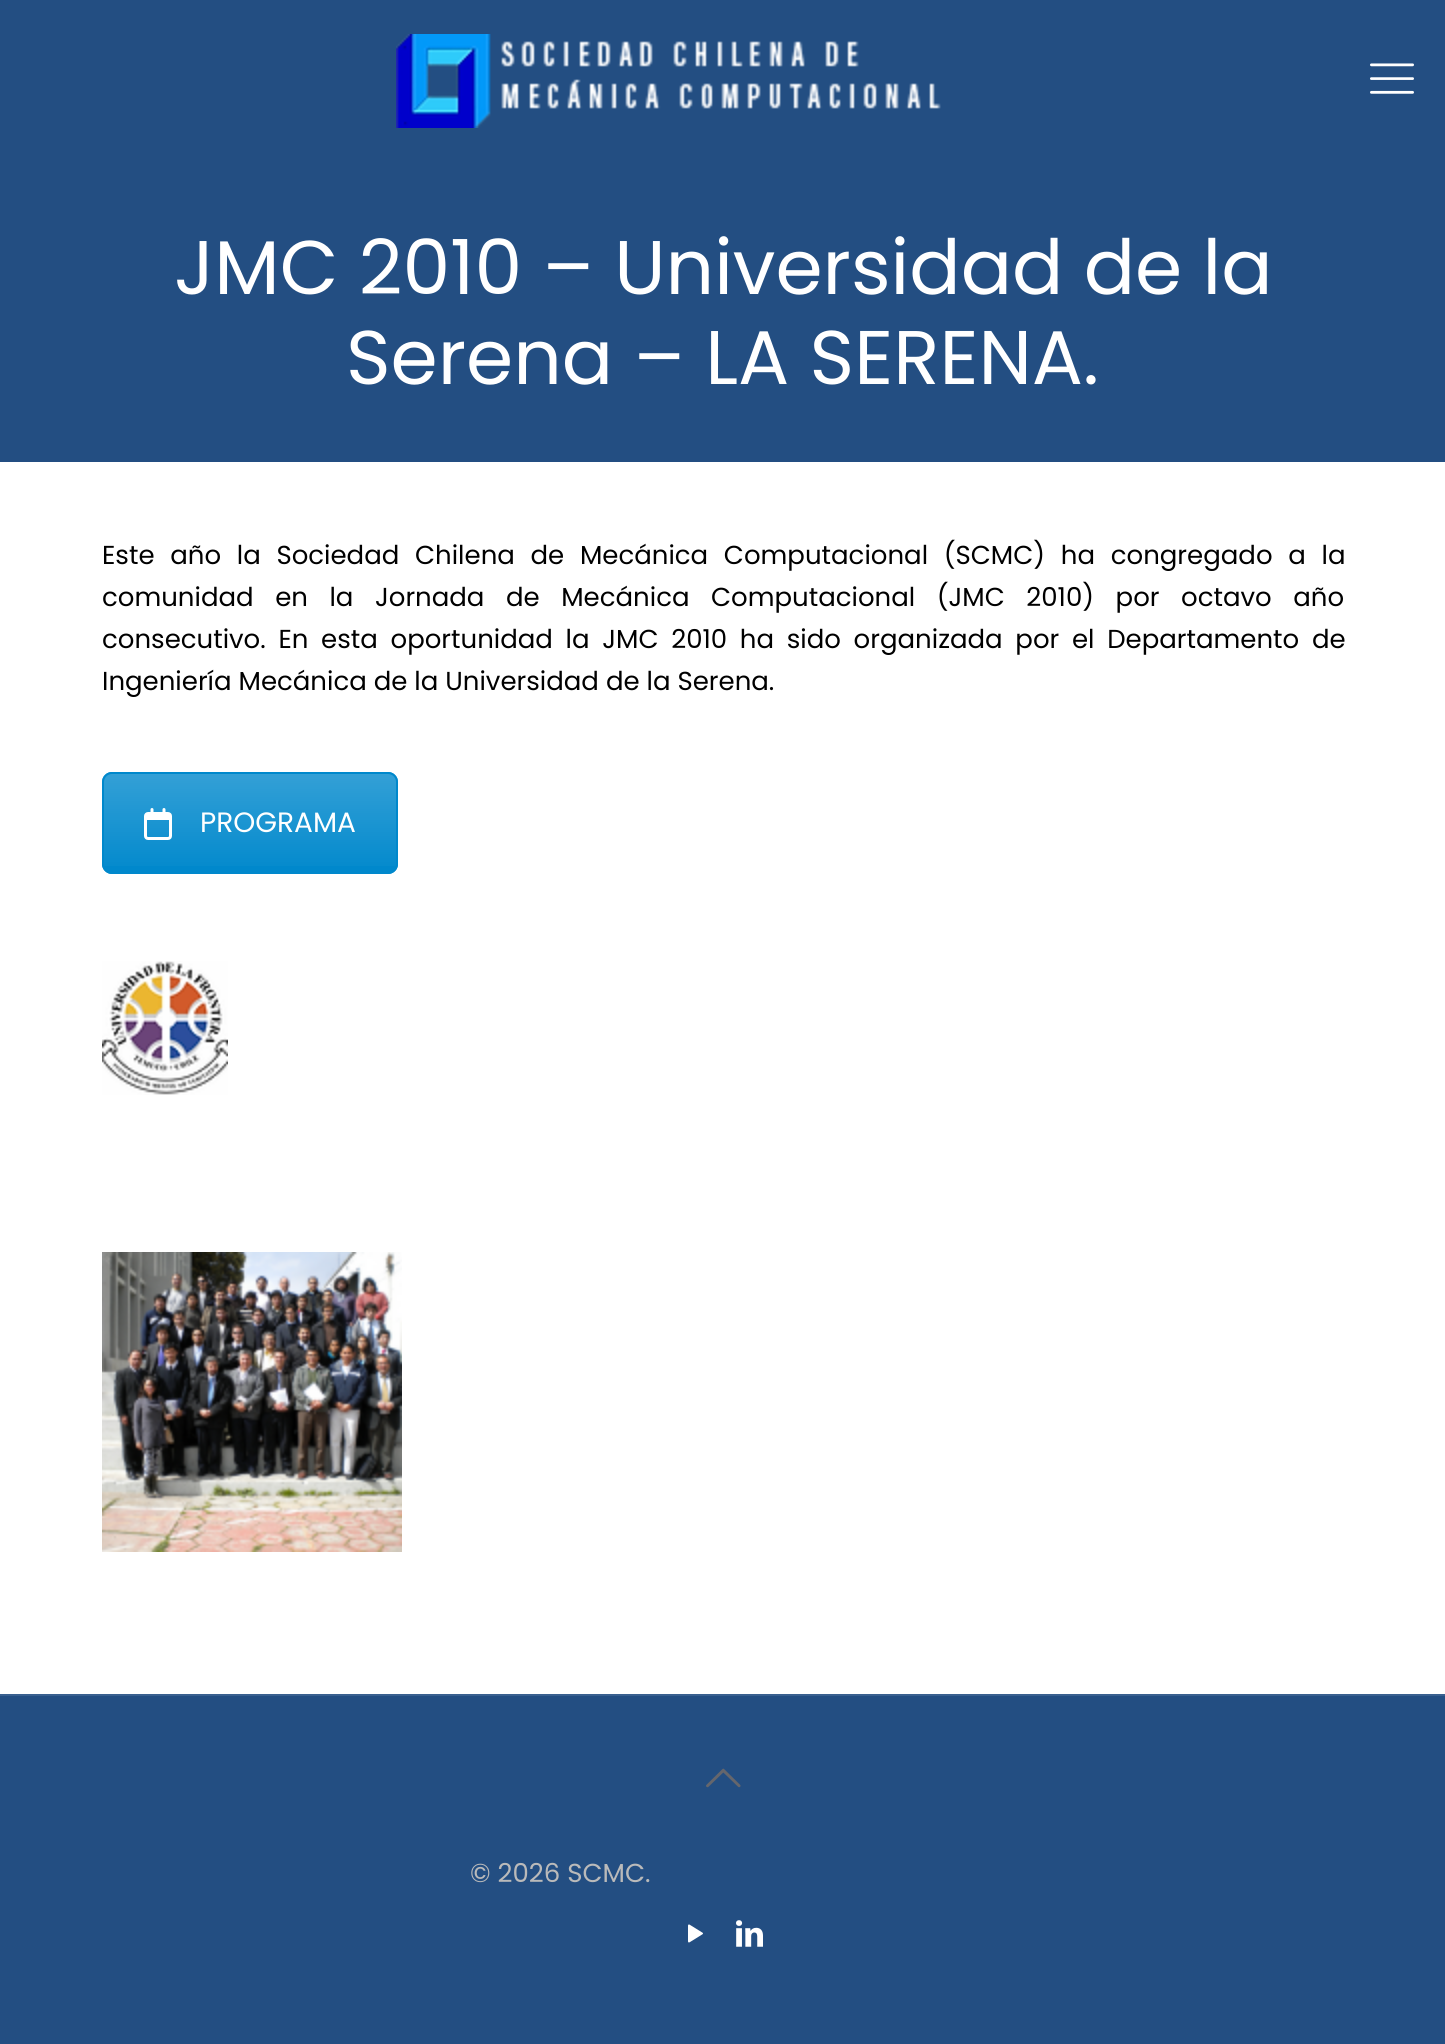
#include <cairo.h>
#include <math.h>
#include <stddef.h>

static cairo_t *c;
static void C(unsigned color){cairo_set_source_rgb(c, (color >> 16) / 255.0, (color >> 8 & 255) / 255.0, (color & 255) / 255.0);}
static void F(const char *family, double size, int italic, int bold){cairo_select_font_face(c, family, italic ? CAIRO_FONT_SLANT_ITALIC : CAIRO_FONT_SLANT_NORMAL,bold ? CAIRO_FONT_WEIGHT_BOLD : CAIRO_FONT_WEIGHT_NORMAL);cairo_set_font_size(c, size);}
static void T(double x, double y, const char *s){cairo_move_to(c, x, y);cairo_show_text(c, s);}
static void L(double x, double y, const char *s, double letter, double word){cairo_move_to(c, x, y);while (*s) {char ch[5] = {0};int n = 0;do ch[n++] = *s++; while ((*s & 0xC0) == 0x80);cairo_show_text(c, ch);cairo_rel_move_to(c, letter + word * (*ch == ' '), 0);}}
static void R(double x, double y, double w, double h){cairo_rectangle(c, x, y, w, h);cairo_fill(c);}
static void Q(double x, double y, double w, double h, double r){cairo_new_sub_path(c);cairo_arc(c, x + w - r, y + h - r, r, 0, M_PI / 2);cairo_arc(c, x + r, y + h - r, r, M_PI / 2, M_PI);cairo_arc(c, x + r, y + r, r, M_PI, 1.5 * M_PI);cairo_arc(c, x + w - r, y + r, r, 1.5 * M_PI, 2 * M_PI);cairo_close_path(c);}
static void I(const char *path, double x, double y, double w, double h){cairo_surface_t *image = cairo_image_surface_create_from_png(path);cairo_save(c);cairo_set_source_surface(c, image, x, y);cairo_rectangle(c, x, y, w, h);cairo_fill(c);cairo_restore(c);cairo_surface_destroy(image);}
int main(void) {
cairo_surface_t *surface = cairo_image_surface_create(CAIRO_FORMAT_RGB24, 1445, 2044);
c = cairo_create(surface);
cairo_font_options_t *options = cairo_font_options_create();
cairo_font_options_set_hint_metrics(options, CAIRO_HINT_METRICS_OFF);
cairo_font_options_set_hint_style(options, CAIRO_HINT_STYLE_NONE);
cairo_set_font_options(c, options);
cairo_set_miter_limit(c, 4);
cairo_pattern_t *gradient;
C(0xffffff);
cairo_paint(c);
C(0x234e82);
R(0,0,1445,462);
I("1.png",396,34,545,94);
I("2.png",1370,63,44,31);
F("Poppins",76,0,0);
C(0xffffff);
T(174,294,"JMC 2010 – Universidad de la");
T(346,384,"Serena – LA SERENA.");
F("Poppins",26,0,0);
C(0x000000);
L(102,564,"Este año la Sociedad Chilena de Mecánica Computacional (SCMC) ha congregado a la",0,8.75);
L(102,606,"comunidad en la Jornada de Mecánica Computacional (JMC 2010) por octavo año",0,14.6);
L(102,648,"consecutivo. En esta oportunidad la JMC 2010 ha sido organizada por el Departamento de",0,5.75);
T(102,690,"Ingeniería Mecánica de la Universidad de la Serena.");
C(0x0088cc);
Q(102,772,296,102,10);
cairo_fill(c);
cairo_save(c);
Q(102,772,296,102,10);
cairo_clip(c);
gradient = cairo_pattern_create_linear(250,774,250,872);
cairo_pattern_add_color_stop_rgba(gradient,0,1,1,1,.2);
cairo_pattern_add_color_stop_rgba(gradient,1,1,1,1,.01);
cairo_set_source(c,gradient);
cairo_pattern_destroy(gradient);
R(102,774,296,92);
cairo_restore(c);
Q(103,773,294,100,9);
cairo_stroke(c);
I("3.png",144,808,28,32);
F("Poppins",28,0,0);
C(0xffffff);
T(200,832,"PROGRAMA");
I("4.png",102,961,126,134);
I("5.png",102,1252,300,300);
C(0x234e82);
R(0,1696,1445,348);
C(0x39608f);
R(0,1694,1445,2);
I("6.png",706,1768,35,20);
F("Poppins",26,0,0);
C(0xbababa);
T(470,1882,"© 2026 SCMC.");
I("7.png",688,1924,15,19);
I("8.png",736,1920,27,27);
cairo_surface_write_to_png(surface, "o.png");
cairo_font_options_destroy(options);
cairo_destroy(c);
cairo_surface_destroy(surface);
return 0;
}
